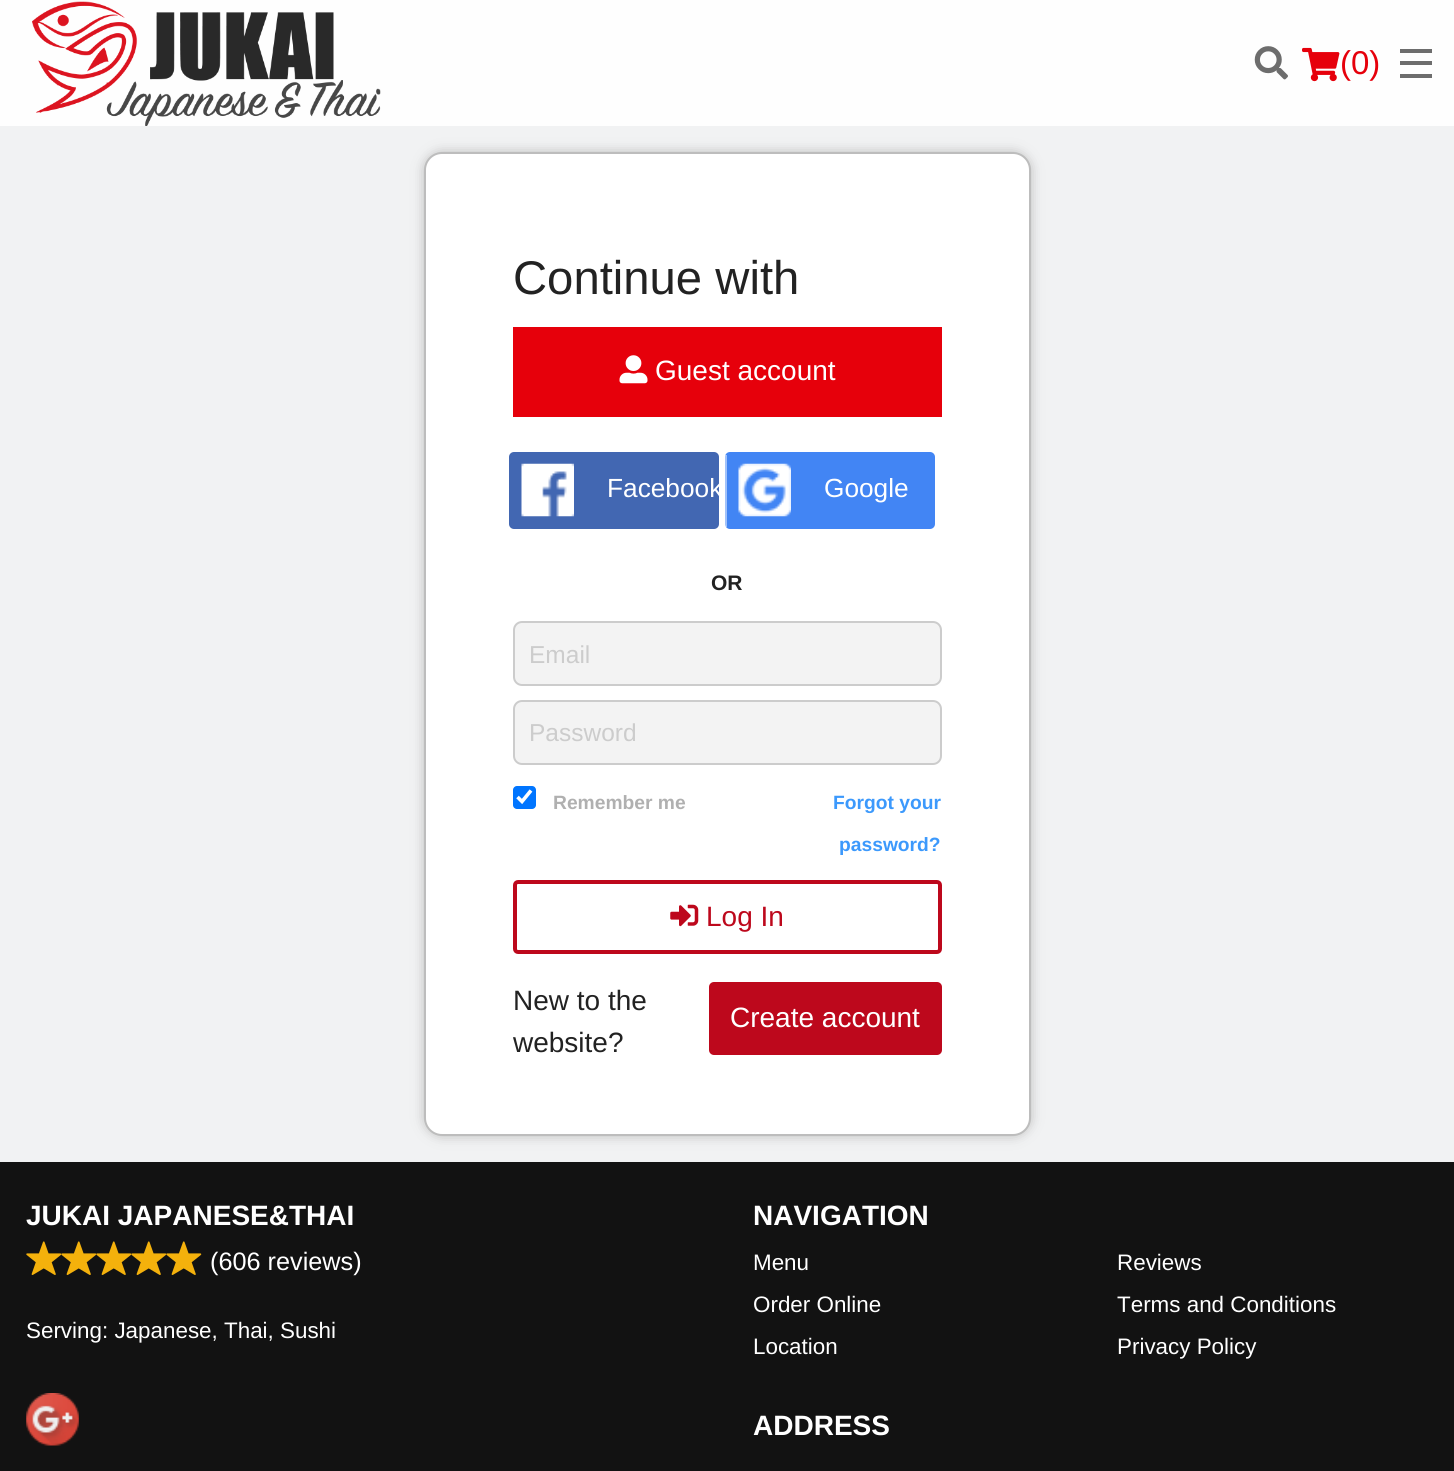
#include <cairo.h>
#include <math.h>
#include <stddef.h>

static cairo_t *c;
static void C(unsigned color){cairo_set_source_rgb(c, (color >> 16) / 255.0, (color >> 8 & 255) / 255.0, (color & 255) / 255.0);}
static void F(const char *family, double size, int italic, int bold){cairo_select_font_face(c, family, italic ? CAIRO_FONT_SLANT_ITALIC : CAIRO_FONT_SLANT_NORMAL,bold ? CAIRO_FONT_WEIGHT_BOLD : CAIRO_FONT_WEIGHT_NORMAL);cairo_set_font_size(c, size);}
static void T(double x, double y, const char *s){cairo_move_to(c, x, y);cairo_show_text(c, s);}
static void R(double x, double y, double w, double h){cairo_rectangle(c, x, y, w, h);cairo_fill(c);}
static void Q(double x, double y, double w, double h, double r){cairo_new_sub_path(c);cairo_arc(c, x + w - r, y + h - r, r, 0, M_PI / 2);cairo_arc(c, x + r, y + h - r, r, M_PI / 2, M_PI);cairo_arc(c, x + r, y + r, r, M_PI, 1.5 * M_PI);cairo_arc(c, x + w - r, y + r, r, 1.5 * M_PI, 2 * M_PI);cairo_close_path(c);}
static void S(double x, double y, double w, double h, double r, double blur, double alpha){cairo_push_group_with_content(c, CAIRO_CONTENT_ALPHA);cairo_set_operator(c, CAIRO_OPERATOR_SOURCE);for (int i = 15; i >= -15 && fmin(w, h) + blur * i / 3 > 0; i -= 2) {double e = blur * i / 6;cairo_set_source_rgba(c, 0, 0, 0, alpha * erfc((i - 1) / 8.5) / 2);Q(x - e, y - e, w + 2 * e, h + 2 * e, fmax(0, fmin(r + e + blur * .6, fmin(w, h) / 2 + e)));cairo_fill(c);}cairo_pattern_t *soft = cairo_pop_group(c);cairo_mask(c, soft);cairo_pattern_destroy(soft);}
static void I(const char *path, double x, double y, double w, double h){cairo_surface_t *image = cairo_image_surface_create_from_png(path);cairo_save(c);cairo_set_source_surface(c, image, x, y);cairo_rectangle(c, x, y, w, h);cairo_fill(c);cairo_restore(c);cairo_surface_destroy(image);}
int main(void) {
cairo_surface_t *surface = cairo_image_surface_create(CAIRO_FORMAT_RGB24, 1454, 1471);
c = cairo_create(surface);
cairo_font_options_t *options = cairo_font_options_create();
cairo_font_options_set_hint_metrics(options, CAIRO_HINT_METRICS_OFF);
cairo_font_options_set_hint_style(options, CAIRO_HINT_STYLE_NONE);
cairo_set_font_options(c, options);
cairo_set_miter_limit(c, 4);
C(0xf1f2f3);
cairo_paint(c);
C(0xfefefe);
R(0,0,1454,126);
I("1.png",32,1,349,125);
I("2.png",1254,46,34,34);
I("3.png",1302,47,38,35);
F("Liberation Sans",33,0,0);
C(0xe6000b);
T(1340,74,"(0)");
C(0x6d6d6d);
R(1400,74,32,4);
R(1400,61,32,4);
R(1400,49,32,4);
C(0xbdbdbd);
S(424,152,607,984,18,6,1);
C(0xffffff);
Q(425,153,605,982,17);
cairo_fill_preserve(c);
C(0xbdbdbd);
cairo_stroke(c);
F("Liberation Sans",47.25,0,0);
C(0x222222);
T(513,294,"Continue with");
C(0xe6000b);
R(513,327,429,90);
I("4.png",619,355,29,29);
F("Liberation Sans",28,0,0);
C(0xffffff);
T(655,380,"Guest account");
C(0x4267b2);
Q(509,452,210,77,5);
cairo_fill(c);
I("5.png",521,463,53,54);
F("Liberation Sans",26.25,0,0);
C(0xffffff);
T(607,497,"Facebook");
C(0x4285f4);
Q(725,452,210,77,5);
cairo_fill(c);
cairo_set_source_rgba(c,1,1,1,0.5);
R(725,455,2,72);
I("6.png",738,463,53,54);
C(0xffffff);
T(824,497,"Google");
F("Liberation Sans",21,0,1);
C(0x222222);
T(711,590,"OR");
C(0xf3f3f3);
Q(514,622,427,63,8);
cairo_fill_preserve(c);
C(0xcccccc);
cairo_stroke(c);
F("Liberation Sans",24.5,0,0);
T(529,663,"Email");
C(0xf3f3f3);
Q(514,701,427,63,8);
cairo_fill_preserve(c);
C(0xcccccc);
cairo_stroke(c);
T(529,741,"Password");
C(0x0075ff);
Q(513,786,23,23,4);
cairo_fill(c);
cairo_new_path(c);
cairo_move_to(c,517.5,797);
cairo_line_to(c,522,801.5);
cairo_line_to(c,531,790.5);
C(0xffffff);
cairo_set_line_width(c,3.6);
cairo_stroke(c);
F("Liberation Sans",19.25,0,1);
C(0xb0b0b0);
T(553,809,"Remember me");
C(0x3c99fc);
T(833,809,"Forgot your");
T(839,851,"password?");
Q(515,882,425,70,3);
C(0xbd081c);
cairo_set_line_width(c,4);
cairo_stroke(c);
I("7.png",670,904,29,23);
F("Liberation Sans",28,0,0);
T(706,926,"Log In");
C(0x222222);
T(513,1010,"New to the");
T(513,1052,"website?");
C(0xbd081c);
Q(709,982,233,73,5);
cairo_fill(c);
C(0xffffff);
T(730,1027,"Create account");
C(0x121212);
R(0,1162,1454,309);
F("Liberation Sans",28,0,1);
C(0xffffff);
T(26,1225,"JUKAI JAPANESE&THAI");
I("8.png",26,1241,36,34);
I("9.png",61,1241,36,34);
I("9.png",96,1241,36,34);
I("9.png",131,1241,36,34);
I("9.png",166,1241,36,34);
F("Liberation Sans",25.25,0,0);
T(210,1270,"(606 reviews)");
F("Liberation Sans",22.4,0,0);
T(26,1338,"Serving: Japanese, Thai, Sushi");
I("10.png",26,1393,53,53);
F("Liberation Sans",28,0,1);
T(753,1225,"NAVIGATION");
F("Liberation Sans",22.4,0,0);
T(753,1270,"Menu");
T(753,1312,"Order Online");
T(753,1354,"Location");
T(1117,1270,"Reviews");
T(1117,1312,"Terms and Conditions");
T(1117,1354,"Privacy Policy");
F("Liberation Sans",28,0,1);
T(753,1435,"ADDRESS");
cairo_surface_write_to_png(surface, "o.png");
cairo_font_options_destroy(options);
cairo_destroy(c);
cairo_surface_destroy(surface);
return 0;
}
